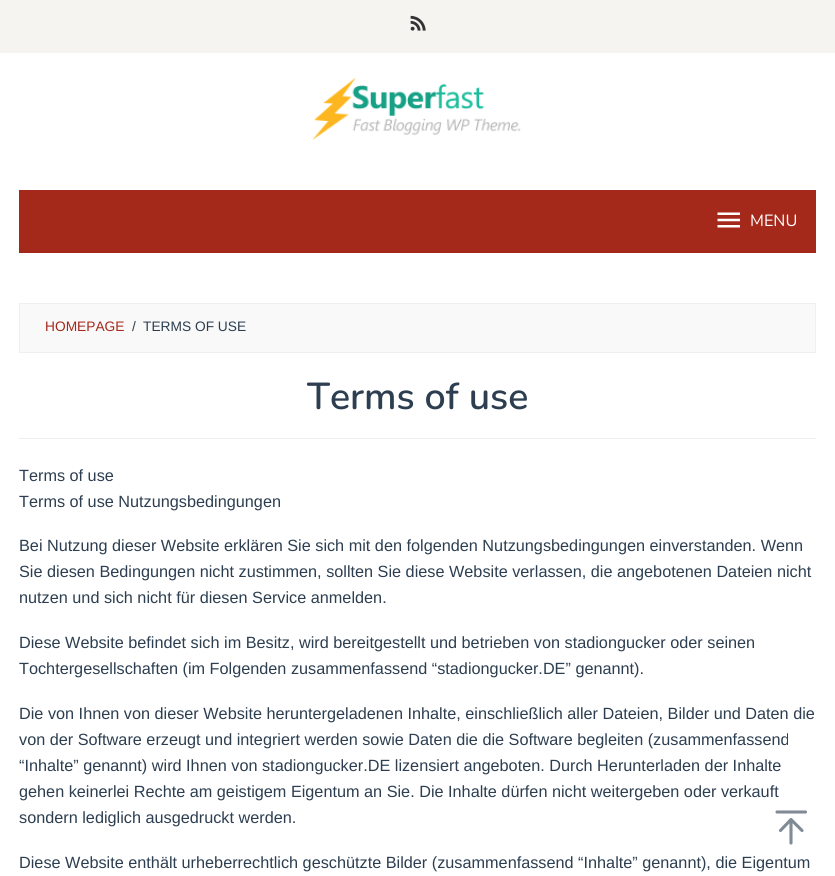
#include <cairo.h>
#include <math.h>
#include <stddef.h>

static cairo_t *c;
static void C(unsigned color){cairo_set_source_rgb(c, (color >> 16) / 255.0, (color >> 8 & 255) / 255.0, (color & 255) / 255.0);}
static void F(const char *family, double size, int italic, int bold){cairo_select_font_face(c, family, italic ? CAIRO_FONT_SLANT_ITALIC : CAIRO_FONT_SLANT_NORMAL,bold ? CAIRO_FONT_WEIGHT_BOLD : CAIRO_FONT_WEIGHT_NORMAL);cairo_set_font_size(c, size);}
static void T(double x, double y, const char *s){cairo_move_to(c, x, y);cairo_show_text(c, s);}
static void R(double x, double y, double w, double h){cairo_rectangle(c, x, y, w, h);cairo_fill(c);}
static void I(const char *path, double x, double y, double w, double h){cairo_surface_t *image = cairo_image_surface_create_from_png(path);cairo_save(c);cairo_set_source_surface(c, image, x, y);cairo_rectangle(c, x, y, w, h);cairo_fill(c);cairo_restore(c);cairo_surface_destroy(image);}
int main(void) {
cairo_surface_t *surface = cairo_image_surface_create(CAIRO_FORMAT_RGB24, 835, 876);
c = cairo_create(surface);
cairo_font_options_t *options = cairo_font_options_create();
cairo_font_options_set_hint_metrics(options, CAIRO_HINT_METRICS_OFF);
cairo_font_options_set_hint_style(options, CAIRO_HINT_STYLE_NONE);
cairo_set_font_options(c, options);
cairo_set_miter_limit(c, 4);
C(0xffffff);
cairo_paint(c);
C(0xf6f4f1);
R(0,0,835,53);
I("1.png",410,15,16,16);
I("2.png",312,77,209,63);
C(0xa5291b);
R(19,190,797,63);
I("3.png",717,212,23,16);
F("Nunito",16.25,0,0);
C(0xffffff);
T(750,226,"MENU");
C(0xf9f9f9);
cairo_rectangle(c,19.5,303.5,796,49);
cairo_fill_preserve(c);
C(0xecf0f1);
cairo_set_line_width(c,1);
cairo_stroke(c);
F("Liberation Sans",13.75,0,0);
C(0xa5291b);
T(45,331,"HOMEPAGE");
C(0x2c3e50);
T(132,331,"/");
T(143,331,"TERMS OF USE");
C(0xecf0f1);
R(19,438,797,1);
F("Nunito SemiBold",37.5,0,0);
C(0x2c3e50);
T(307,409,"Terms of use");
F("Liberation Sans",16.25,0,0);
T(19,481,"Terms of use");
T(19,507,"Terms of use Nutzungsbedingungen");
T(19,551,"Bei Nutzung dieser Website erklären Sie sich mit den folgenden Nutzungsbedingungen einverstanden. Wenn");
T(19,577,"Sie diesen Bedingungen nicht zustimmen, sollten Sie diese Website verlassen, die angebotenen Dateien nicht");
T(19,603,"nutzen und sich nicht für diesen Service anmelden.");
T(19,648,"Diese Website befindet sich im Besitz, wird bereitgestellt und betrieben von stadiongucker oder seinen");
T(19,674,"Tochtergesellschaften (im Folgenden zusammenfassend “stadiongucker.DE” genannt).");
T(19,719,"Die von Ihnen von dieser Website heruntergeladenen Inhalte, einschließlich aller Dateien, Bilder und Daten die");
T(19,745,"von der Software erzeugt und integriert werden sowie Daten die die Software begleiten (zusammenfassend");
T(19,771,"“Inhalte” genannt) wird Ihnen von stadiongucker.DE lizensiert angeboten. Durch Herunterladen der Inhalte");
T(19,797,"gehen keinerlei Rechte am geistigem Eigentum an Sie. Die Inhalte dürfen nicht weitergeben oder verkauft");
T(19,823,"sondern lediglich ausgedruckt werden.");
T(19,868,"Diese Website enthält urheberrechtlich geschützte Bilder (zusammenfassend “Inhalte” genannt), die Eigentum");
cairo_new_path(c);
cairo_move_to(c,791,843);
cairo_line_to(c,791,819.5);
cairo_move_to(c,780.5,830.5);
cairo_line_to(c,791,819.5);
cairo_line_to(c,802,830.5);
cairo_move_to(c,777,812);
cairo_line_to(c,805.5,812);
C(0x808b96);
cairo_set_line_width(c,3.1);
cairo_set_line_cap(c,CAIRO_LINE_CAP_ROUND);
cairo_set_line_join(c,CAIRO_LINE_JOIN_ROUND);
cairo_stroke(c);
cairo_surface_write_to_png(surface, "o.png");
cairo_font_options_destroy(options);
cairo_destroy(c);
cairo_surface_destroy(surface);
return 0;
}
